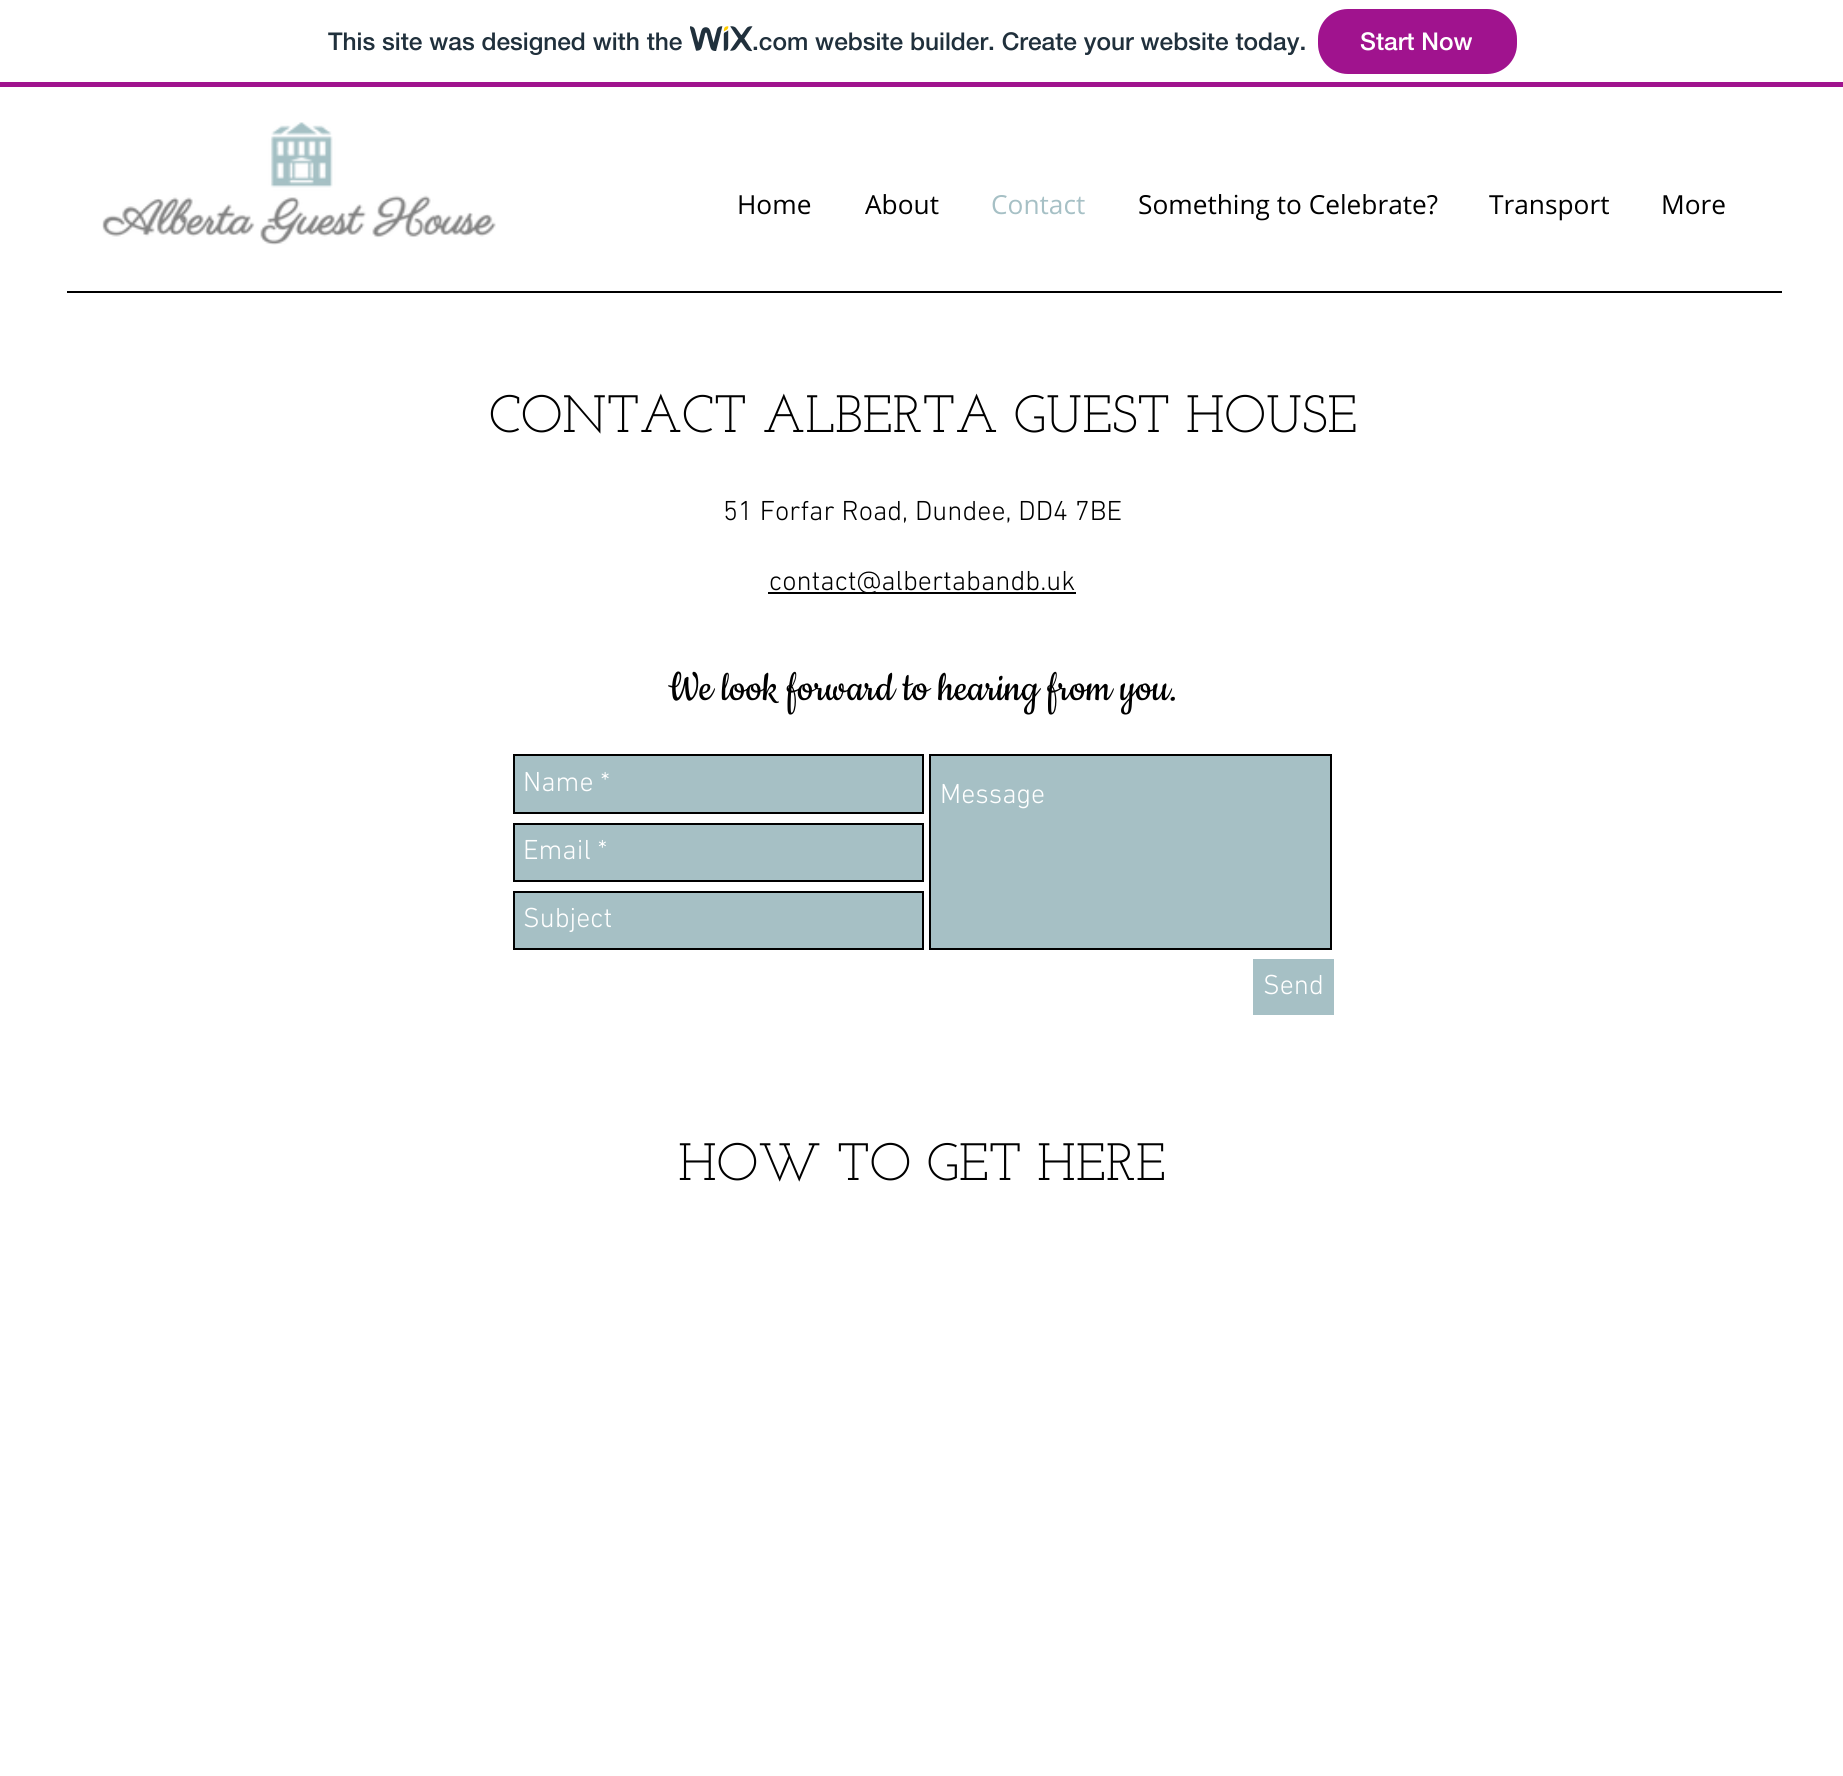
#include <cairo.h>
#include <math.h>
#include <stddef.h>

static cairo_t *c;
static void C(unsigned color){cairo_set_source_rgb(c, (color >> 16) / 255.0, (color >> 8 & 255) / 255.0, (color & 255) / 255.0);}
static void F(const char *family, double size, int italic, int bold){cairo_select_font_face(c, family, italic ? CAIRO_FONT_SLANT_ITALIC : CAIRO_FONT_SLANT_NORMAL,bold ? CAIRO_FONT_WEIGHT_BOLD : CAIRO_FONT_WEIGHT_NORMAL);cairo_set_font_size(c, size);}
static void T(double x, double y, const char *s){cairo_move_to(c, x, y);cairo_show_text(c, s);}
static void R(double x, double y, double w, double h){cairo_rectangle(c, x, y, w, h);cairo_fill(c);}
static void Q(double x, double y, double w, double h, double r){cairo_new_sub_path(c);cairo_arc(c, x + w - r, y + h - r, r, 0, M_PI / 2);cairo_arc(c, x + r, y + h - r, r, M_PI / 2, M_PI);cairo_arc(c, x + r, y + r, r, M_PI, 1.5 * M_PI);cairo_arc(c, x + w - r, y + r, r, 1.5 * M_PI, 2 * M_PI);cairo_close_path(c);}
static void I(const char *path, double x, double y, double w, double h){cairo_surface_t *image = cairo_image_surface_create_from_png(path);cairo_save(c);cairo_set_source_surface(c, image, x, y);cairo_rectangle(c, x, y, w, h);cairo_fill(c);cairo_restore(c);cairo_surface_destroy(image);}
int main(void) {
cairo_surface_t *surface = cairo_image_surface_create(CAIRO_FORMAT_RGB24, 1843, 1776);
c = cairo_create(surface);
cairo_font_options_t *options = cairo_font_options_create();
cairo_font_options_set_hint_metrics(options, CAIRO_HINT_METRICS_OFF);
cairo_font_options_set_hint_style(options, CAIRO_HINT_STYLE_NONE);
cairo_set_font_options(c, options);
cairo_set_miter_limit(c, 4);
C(0xffffff);
cairo_paint(c);
C(0xa0138e);
R(0,82,1843,5);
F("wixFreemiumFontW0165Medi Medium",24.5,0,0);
C(0x20303c);
T(328,50,"This site was designed with the");
I("1.png",690,26,63,26);
T(752,50,".com website builder. Create your website today.");
C(0xa0138e);
Q(1319,10,197,63,29);
cairo_fill_preserve(c);
cairo_stroke(c);
C(0xffffff);
T(1360,50,"Start Now");
I("2.png",102,122,394,123);
F("Open Sans",26.25,0,0);
C(0x000000);
T(737,214,"Home");
T(865,214,"About");
C(0xa6c0c5);
T(991,214,"Contact");
C(0x000000);
T(1138,214,"Something to Celebrate?");
T(1489,214,"Transport");
T(1661,214,"More");
R(67,291,1715,2);
F("Josefin Slab",52.5,0,0);
T(489,432,"CONTACT ALBERTA GUEST HOUSE");
F("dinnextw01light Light",28,0,0);
T(723,520,"51 Forfar Road, Dundee, DD4 7BE");
R(768,592,308,2);
T(769,590,"contact@albertabandb.uk");
F("Cookie",45.5,0,0);
T(668,700,"We look forward to hearing from you.");
C(0xa6c0c5);
cairo_rectangle(c,514,755,409,58);
cairo_fill_preserve(c);
C(0x000000);
cairo_stroke(c);
F("dinnextw01light Light",28,0,0);
C(0xffffff);
T(523,791,"Name *");
C(0xa6c0c5);
cairo_rectangle(c,930,755,401,194);
cairo_fill_preserve(c);
C(0x000000);
cairo_stroke(c);
C(0xffffff);
T(940,803,"Message");
C(0xa6c0c5);
cairo_rectangle(c,514,824,409,57);
cairo_fill_preserve(c);
C(0x000000);
cairo_stroke(c);
C(0xffffff);
T(523,859,"Email *");
C(0xa6c0c5);
cairo_rectangle(c,514,892,409,57);
cairo_fill_preserve(c);
C(0x000000);
cairo_stroke(c);
C(0xffffff);
T(523,927,"Subject");
C(0xa6c0c5);
R(1253,959,81,56);
C(0xffffff);
T(1263,994,"Send");
F("Josefin Slab",52.5,0,0);
C(0x000000);
T(678,1180,"HOW TO GET HERE");
cairo_surface_write_to_png(surface, "o.png");
cairo_font_options_destroy(options);
cairo_destroy(c);
cairo_surface_destroy(surface);
return 0;
}
